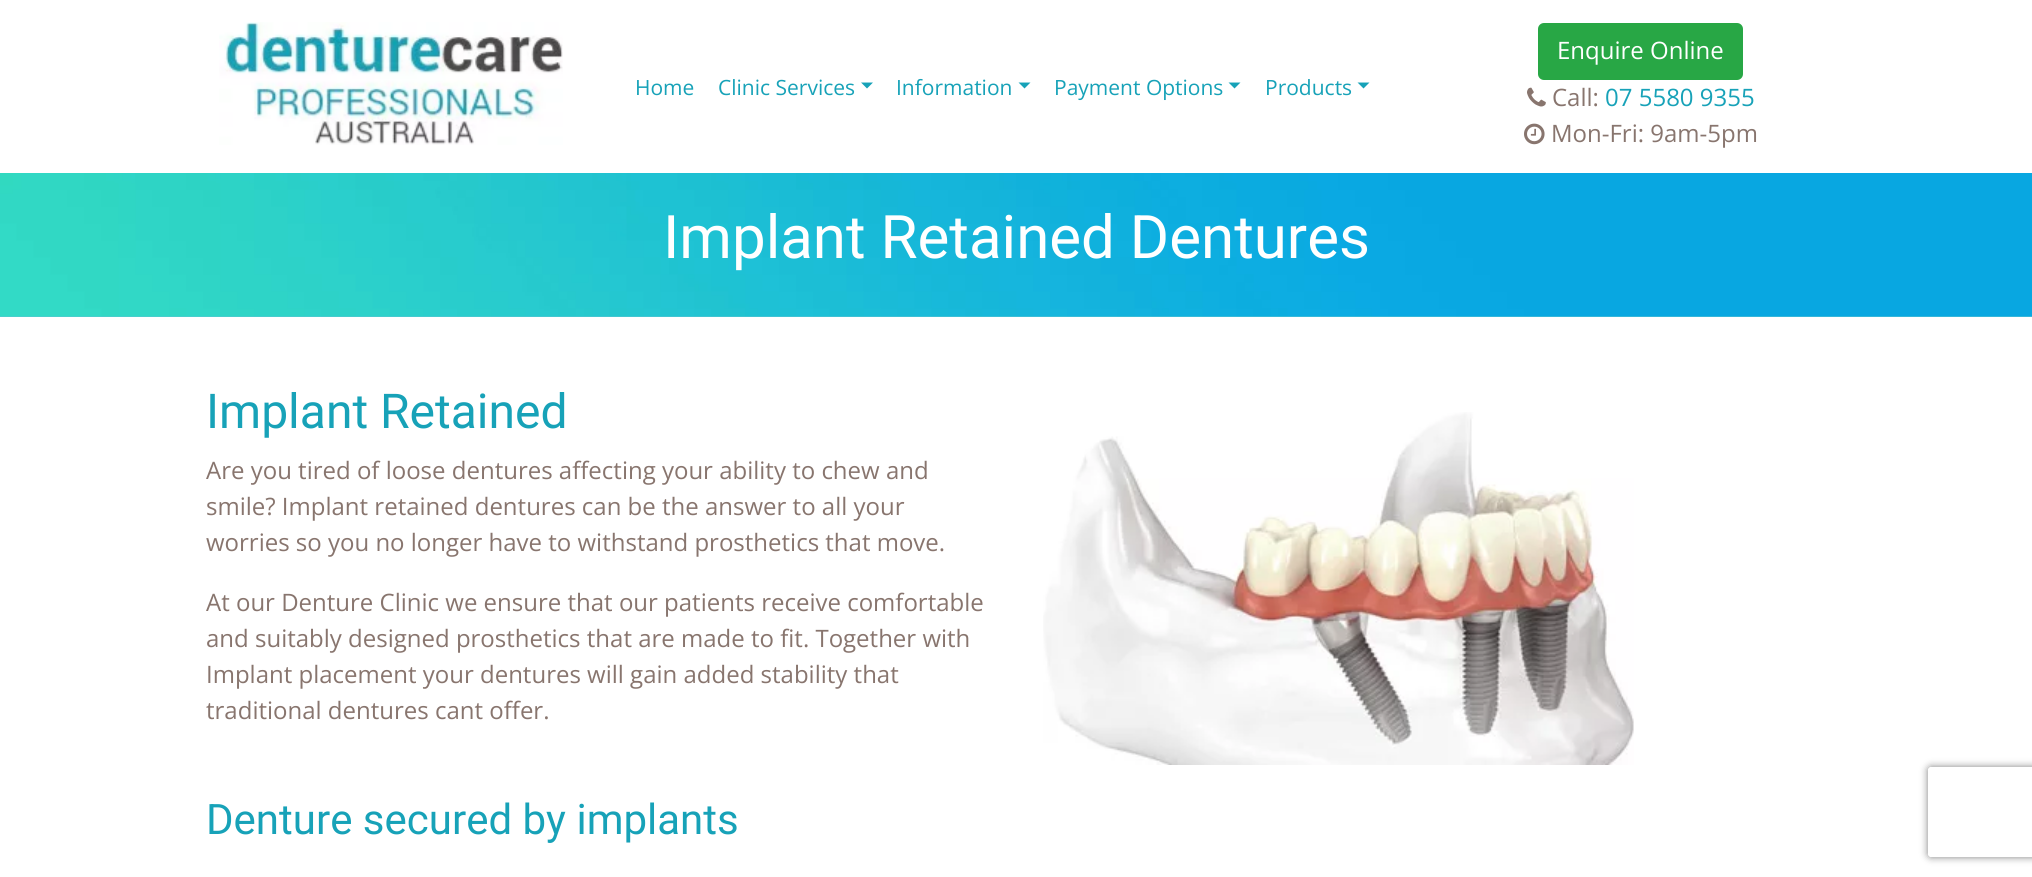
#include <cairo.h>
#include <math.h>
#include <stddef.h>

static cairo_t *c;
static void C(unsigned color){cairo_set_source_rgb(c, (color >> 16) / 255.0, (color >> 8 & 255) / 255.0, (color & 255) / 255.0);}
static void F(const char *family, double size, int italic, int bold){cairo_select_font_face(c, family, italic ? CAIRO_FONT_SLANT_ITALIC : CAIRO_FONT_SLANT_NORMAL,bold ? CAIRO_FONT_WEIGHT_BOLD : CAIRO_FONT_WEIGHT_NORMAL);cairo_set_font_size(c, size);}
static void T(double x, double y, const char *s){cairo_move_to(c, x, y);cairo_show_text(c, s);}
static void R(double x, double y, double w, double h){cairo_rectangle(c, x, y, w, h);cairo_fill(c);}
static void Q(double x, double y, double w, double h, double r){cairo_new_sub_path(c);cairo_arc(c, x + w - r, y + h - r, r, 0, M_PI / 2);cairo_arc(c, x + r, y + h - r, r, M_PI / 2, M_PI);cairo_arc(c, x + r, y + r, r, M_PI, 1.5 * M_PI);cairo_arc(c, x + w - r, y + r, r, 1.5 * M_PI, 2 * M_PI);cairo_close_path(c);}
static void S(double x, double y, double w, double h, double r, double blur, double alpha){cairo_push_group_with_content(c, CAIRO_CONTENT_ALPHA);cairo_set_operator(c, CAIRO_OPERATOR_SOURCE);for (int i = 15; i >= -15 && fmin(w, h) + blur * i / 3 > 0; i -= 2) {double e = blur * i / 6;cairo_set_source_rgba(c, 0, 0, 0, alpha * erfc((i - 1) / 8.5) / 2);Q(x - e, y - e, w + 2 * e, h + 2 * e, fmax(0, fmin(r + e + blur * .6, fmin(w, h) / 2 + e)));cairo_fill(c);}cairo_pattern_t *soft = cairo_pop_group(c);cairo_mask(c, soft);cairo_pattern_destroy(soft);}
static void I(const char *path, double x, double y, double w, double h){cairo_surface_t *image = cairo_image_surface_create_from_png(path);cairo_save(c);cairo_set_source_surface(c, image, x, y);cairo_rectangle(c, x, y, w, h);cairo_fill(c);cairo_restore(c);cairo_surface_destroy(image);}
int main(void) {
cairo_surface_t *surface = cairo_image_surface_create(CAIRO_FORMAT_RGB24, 2032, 877);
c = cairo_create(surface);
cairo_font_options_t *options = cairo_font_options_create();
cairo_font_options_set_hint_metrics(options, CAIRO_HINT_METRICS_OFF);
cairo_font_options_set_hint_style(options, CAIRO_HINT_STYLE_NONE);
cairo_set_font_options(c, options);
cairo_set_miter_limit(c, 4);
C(0xffffff);
cairo_paint(c);
I("1.png",219,22,344,123);
F("Open Sans",21,0,0);
C(0x17a2b8);
T(635,95,"Home");
T(718,95,"Clinic Services");
cairo_new_path(c);
cairo_move_to(c,861,82.5);
cairo_line_to(c,873,82.5);
cairo_line_to(c,867,88.5);
cairo_close_path(c);
cairo_fill(c);
T(896,95,"Information");
cairo_new_path(c);
cairo_move_to(c,1018.5,82.5);
cairo_line_to(c,1030.5,82.5);
cairo_line_to(c,1024.5,88.5);
cairo_close_path(c);
cairo_fill(c);
T(1054,95,"Payment Options");
cairo_new_path(c);
cairo_move_to(c,1228.5,82.5);
cairo_line_to(c,1240.5,82.5);
cairo_line_to(c,1234.5,88.5);
cairo_close_path(c);
cairo_fill(c);
T(1265,95,"Products");
cairo_new_path(c);
cairo_move_to(c,1357.5,82.5);
cairo_line_to(c,1369.5,82.5);
cairo_line_to(c,1363.5,88.5);
cairo_close_path(c);
cairo_fill(c);
C(0x28a745);
Q(1539,24,203,55,5);
cairo_fill_preserve(c);
cairo_stroke(c);
F("Open Sans",24,0,0);
C(0xffffff);
T(1557,59,"Enquire Online");
I("2.png",1527,87,19,20);
C(0x88756e);
T(1552,106,"Call:");
C(0x17a2b8);
T(1605,106,"07 5580 9355");
I("3.png",1524,123,21,22);
C(0x88756e);
T(1551,142,"Mon-Fri: 9am-5pm");
C(0x61c5d3);
R(0,316,2032,1);
I("4.png",0,173,2032,144);
F("Roboto",60,0,0);
C(0xffffff);
T(663,258,"Implant Retained Dentures");
F("Roboto",48,0,0);
C(0x17a2b8);
T(206,428,"Implant Retained");
F("Open Sans",24,0,0);
C(0x88756e);
T(206,479,"Are you tired of loose dentures affecting your ability to chew and");
T(206,515,"smile? Implant retained dentures can be the answer to all your");
T(206,551,"worries so you no longer have to withstand prosthetics that move.");
T(206,611,"At our Denture Clinic we ensure that our patients receive comfortable");
T(206,647,"and suitably designed prosthetics that are made to fit. Together with");
T(206,683,"Implant placement your dentures will gain added stability that");
T(206,719,"traditional dentures cant offer.");
I("5.png",1043,412,591,353);
F("Roboto",42,0,0);
C(0x17a2b8);
T(206,834,"Denture secured by implants");
cairo_save(c);
cairo_set_fill_rule(c,CAIRO_FILL_RULE_EVEN_ODD);
cairo_new_path(c);
cairo_move_to(c,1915,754);
cairo_line_to(c,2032,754);
cairo_line_to(c,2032,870);
cairo_line_to(c,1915,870);
cairo_close_path(c);
cairo_move_to(c,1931,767);
cairo_line_to(c,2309,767);
cairo_curve_to(c,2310.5,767,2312,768.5,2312,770);
cairo_line_to(c,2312,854);
cairo_curve_to(c,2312,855.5,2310.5,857,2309,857);
cairo_line_to(c,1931,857);
cairo_curve_to(c,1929.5,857,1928,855.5,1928,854);
cairo_line_to(c,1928,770);
cairo_curve_to(c,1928,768.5,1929.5,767,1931,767);
cairo_close_path(c);
cairo_clip(c);
C(0x808080);
S(1928,767,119,90,3,4,1);
cairo_restore(c);
cairo_surface_write_to_png(surface, "o.png");
cairo_font_options_destroy(options);
cairo_destroy(c);
cairo_surface_destroy(surface);
return 0;
}
